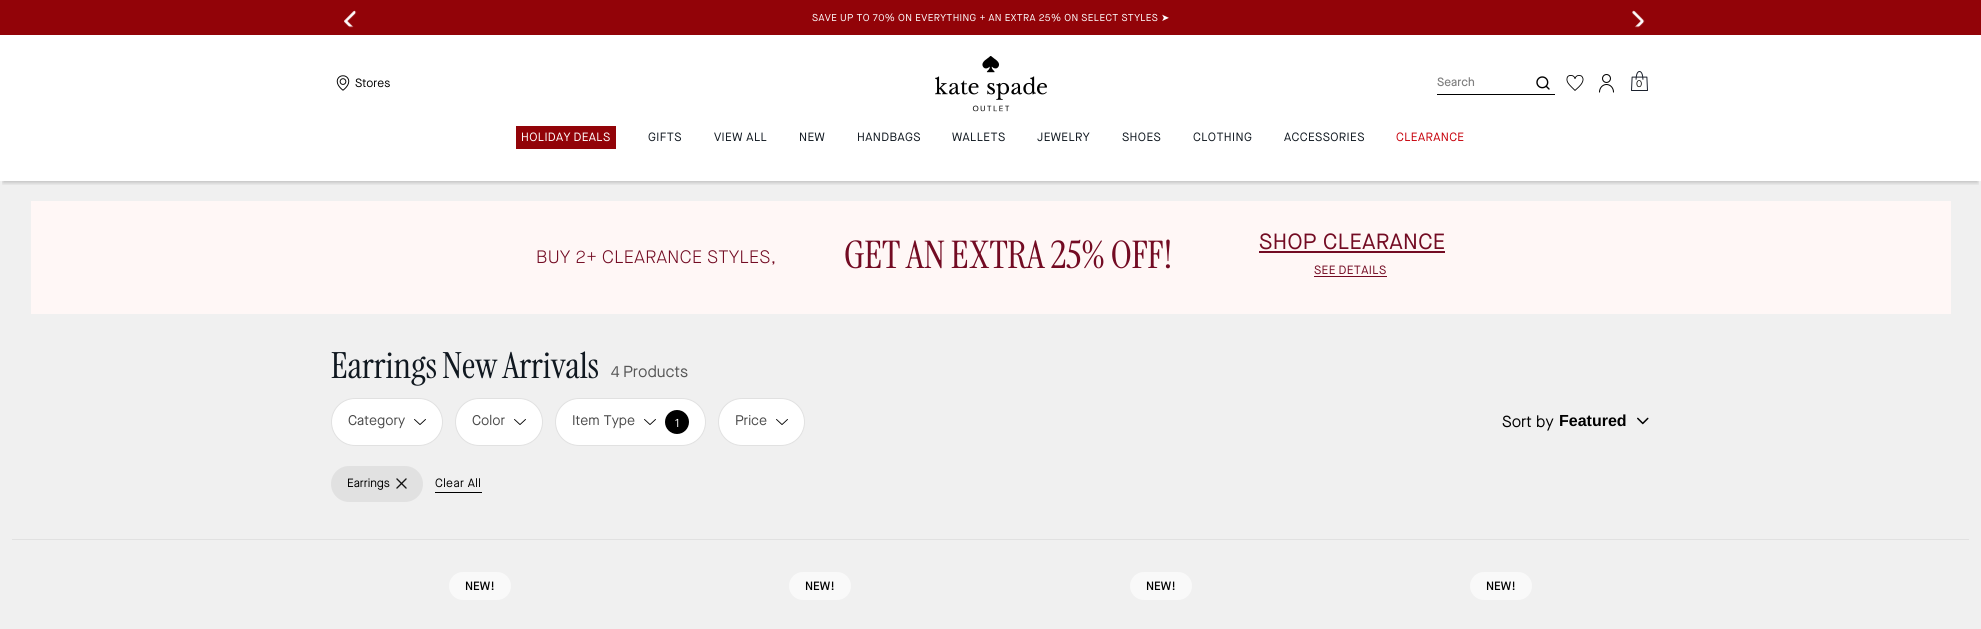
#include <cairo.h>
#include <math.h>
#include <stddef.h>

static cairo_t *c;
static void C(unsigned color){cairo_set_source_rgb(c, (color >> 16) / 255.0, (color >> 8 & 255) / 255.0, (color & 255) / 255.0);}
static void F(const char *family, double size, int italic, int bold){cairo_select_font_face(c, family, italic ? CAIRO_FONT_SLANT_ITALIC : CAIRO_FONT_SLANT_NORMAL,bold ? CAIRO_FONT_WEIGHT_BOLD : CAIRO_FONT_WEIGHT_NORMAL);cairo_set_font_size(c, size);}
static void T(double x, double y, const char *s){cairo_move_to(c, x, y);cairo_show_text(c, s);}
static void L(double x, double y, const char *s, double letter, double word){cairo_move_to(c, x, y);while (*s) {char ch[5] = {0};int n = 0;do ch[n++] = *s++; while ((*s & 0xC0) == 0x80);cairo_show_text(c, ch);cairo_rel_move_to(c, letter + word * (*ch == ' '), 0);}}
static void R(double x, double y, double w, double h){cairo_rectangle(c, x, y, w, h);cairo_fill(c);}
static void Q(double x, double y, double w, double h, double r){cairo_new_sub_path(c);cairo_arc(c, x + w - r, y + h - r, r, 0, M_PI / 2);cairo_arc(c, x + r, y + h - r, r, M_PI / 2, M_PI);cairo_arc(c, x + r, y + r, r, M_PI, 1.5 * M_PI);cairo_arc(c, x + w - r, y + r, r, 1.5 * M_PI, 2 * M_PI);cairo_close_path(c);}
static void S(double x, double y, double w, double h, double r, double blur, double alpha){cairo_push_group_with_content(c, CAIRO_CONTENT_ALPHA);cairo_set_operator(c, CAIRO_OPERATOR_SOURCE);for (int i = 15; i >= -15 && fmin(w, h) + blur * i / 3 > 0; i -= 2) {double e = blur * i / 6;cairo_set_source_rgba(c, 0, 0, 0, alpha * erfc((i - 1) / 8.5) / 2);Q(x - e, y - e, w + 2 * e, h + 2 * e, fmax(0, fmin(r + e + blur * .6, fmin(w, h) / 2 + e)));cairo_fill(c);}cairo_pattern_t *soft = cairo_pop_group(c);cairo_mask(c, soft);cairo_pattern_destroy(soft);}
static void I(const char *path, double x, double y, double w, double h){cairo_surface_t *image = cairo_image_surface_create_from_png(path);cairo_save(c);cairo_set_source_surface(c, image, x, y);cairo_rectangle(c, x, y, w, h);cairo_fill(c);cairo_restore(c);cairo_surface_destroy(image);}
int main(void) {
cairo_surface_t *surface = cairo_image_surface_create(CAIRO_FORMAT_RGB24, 1981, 629);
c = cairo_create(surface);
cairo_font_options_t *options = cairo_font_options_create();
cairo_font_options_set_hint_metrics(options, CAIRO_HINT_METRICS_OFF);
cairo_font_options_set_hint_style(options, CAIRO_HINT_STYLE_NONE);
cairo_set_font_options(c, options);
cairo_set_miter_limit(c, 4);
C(0xffffff);
cairo_paint(c);
C(0x920308);
R(0,0,1981,35);
I("1.png",344,10,13,18);
I("2.png",1632,10,13,18);
F("Maison Neue",10,0,0);
C(0xffffff);
L(812,21,"SAVE UP TO 70% ON EVERYTHING + AN EXTRA 25% ON SELECT STYLES",.4,-.25);
F("DejaVu Sans",10,0,0);
L(1161,21,"➤",.4,0);
C(0xf0f0f0);
R(0,181,1981,448);
cairo_save(c);
cairo_rectangle(c,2,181,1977,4);
cairo_clip(c);
C(0x000000);
S(3,43,1975,140,0,2,.1);
cairo_restore(c);
I("3.png",336,75,14,16);
F("Maison Neue",12,0,0);
C(0x000000);
T(355,87,"Stores");
I("4.png",935,56,112,56);
R(1437,94,118,1);
F("Maison Neue Medium",12,0,0);
C(0x808080);
T(1437,86,"Search");
I("5.png",1536,76,14,14);
I("6.png",1566,75,18,16);
I("7.png",1599,74,15,19);
I("8.png",1631,71,17,20);
F("Maison Neue",10,0,0);
C(0x000000);
L(1636,87,"0",1,0);
cairo_save(c);
cairo_rectangle(c,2,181,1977,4);
cairo_clip(c);
C(0x000000);
S(3,139,1975,44,0,2,.1);
cairo_restore(c);
C(0x920308);
R(516,126,100,23);
F("Maison Neue",12,0,0);
C(0xffffff);
L(521,141,"HOLIDAY DEALS",.4,-1);
C(0x101820);
L(648,141,"GIFTS",.4,0);
L(714,141,"VIEW ALL",.4,0);
L(799,141,"NEW",.4,0);
L(857,141,"HANDBAGS",.4,0);
L(952,141,"WALLETS",.4,0);
L(1037,141,"JEWELRY",.4,0);
L(1122,141,"SHOES",.4,0);
L(1193,141,"CLOTHING",.4,0);
L(1284,141,"ACCESSORIES",.4,0);
C(0xc7000a);
L(1396,141,"CLEARANCE",.4,0);
C(0xfff7f6);
R(31,201,1920,113);
F("Maison Neue Light",18,0,0);
C(0x730b23);
L(536,263,"BUY 2+ CLEARANCE STYLES,",.4,-.5);
F("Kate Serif",38,0,0);
L(844,268,"GET AN EXTRA 25% OFF!",0,-.5);
F("Maison Neue",22,0,0);
L(1259,249,"SHOP CLEARANCE",.4,0);
R(1259,251,186,2);
F("Maison Neue",12,0,0);
L(1314,274,"SEE DETAILS",.4,-1);
R(1314,276,73,1);
F("Kate Serif",36,0,0);
C(0x101820);
L(331,378,"Earrings New Arrivals",0,-1);
F("Maison Neue",16,0,0);
C(0x575757);
L(611,377,"4 Products",0,-1);
C(0xffffff);
Q(331.5,398.5,111,47,23.5);
cairo_fill_preserve(c);
C(0xe1e1e1);
cairo_set_line_width(c,1);
cairo_stroke(c);
F("Maison Neue",14,0,0);
C(0x4a4a4a);
T(348,425,"Category");
I("9.png",414,419,12,6);
C(0xffffff);
Q(455.5,398.5,87,47,23.5);
cairo_fill_preserve(c);
C(0xe1e1e1);
cairo_stroke(c);
C(0x4a4a4a);
T(472,425,"Color");
I("9.png",514,419,12,6);
C(0xffffff);
Q(555.5,398.5,150,47,23.5);
cairo_fill_preserve(c);
C(0xe1e1e1);
cairo_stroke(c);
C(0x4a4a4a);
T(572,425,"Item Type");
I("9.png",644,419,12,6);
C(0x000000);
cairo_arc(c,677,422,12,0,2 * M_PI);
cairo_fill(c);
F("Maison Neue",12,0,0);
C(0xffffff);
T(675,427,"1");
Q(718.5,398.5,86,47,23.5);
cairo_fill_preserve(c);
C(0xe1e1e1);
cairo_stroke(c);
F("Maison Neue",14,0,0);
C(0x4a4a4a);
T(735,425,"Price");
I("9.png",776,419,12,6);
F("Maison Neue",16,0,0);
C(0x000000);
T(1502,427,"Sort by");
F("Liberation Sans",16,0,1);
T(1559,426,"Featured");
I("10.png",1637,417,12,8);
C(0xe1e1e1);
Q(331,466,92,36,18);
cairo_fill(c);
F("Maison Neue",12,0,0);
C(0x000000);
T(347,487,"Earrings");
I("11.png",396,478,11,11);
R(435,492,47,1);
L(435,487,"Clear All",.4,0);
C(0xe1e1e1);
R(12,539,1957,1);
C(0xf9f9f9);
Q(449,572,62,28,14);
cairo_fill(c);
F("Maison Neue Medium",12,0,0);
C(0x000000);
T(465,590,"NEW!");
C(0xf9f9f9);
Q(789,572,62,28,14);
cairo_fill(c);
C(0x000000);
T(805,590,"NEW!");
C(0xf9f9f9);
Q(1130,572,62,28,14);
cairo_fill(c);
C(0x000000);
T(1146,590,"NEW!");
C(0xf9f9f9);
Q(1470,572,62,28,14);
cairo_fill(c);
C(0x000000);
T(1486,590,"NEW!");
cairo_surface_write_to_png(surface, "o.png");
cairo_font_options_destroy(options);
cairo_destroy(c);
cairo_surface_destroy(surface);
return 0;
}
